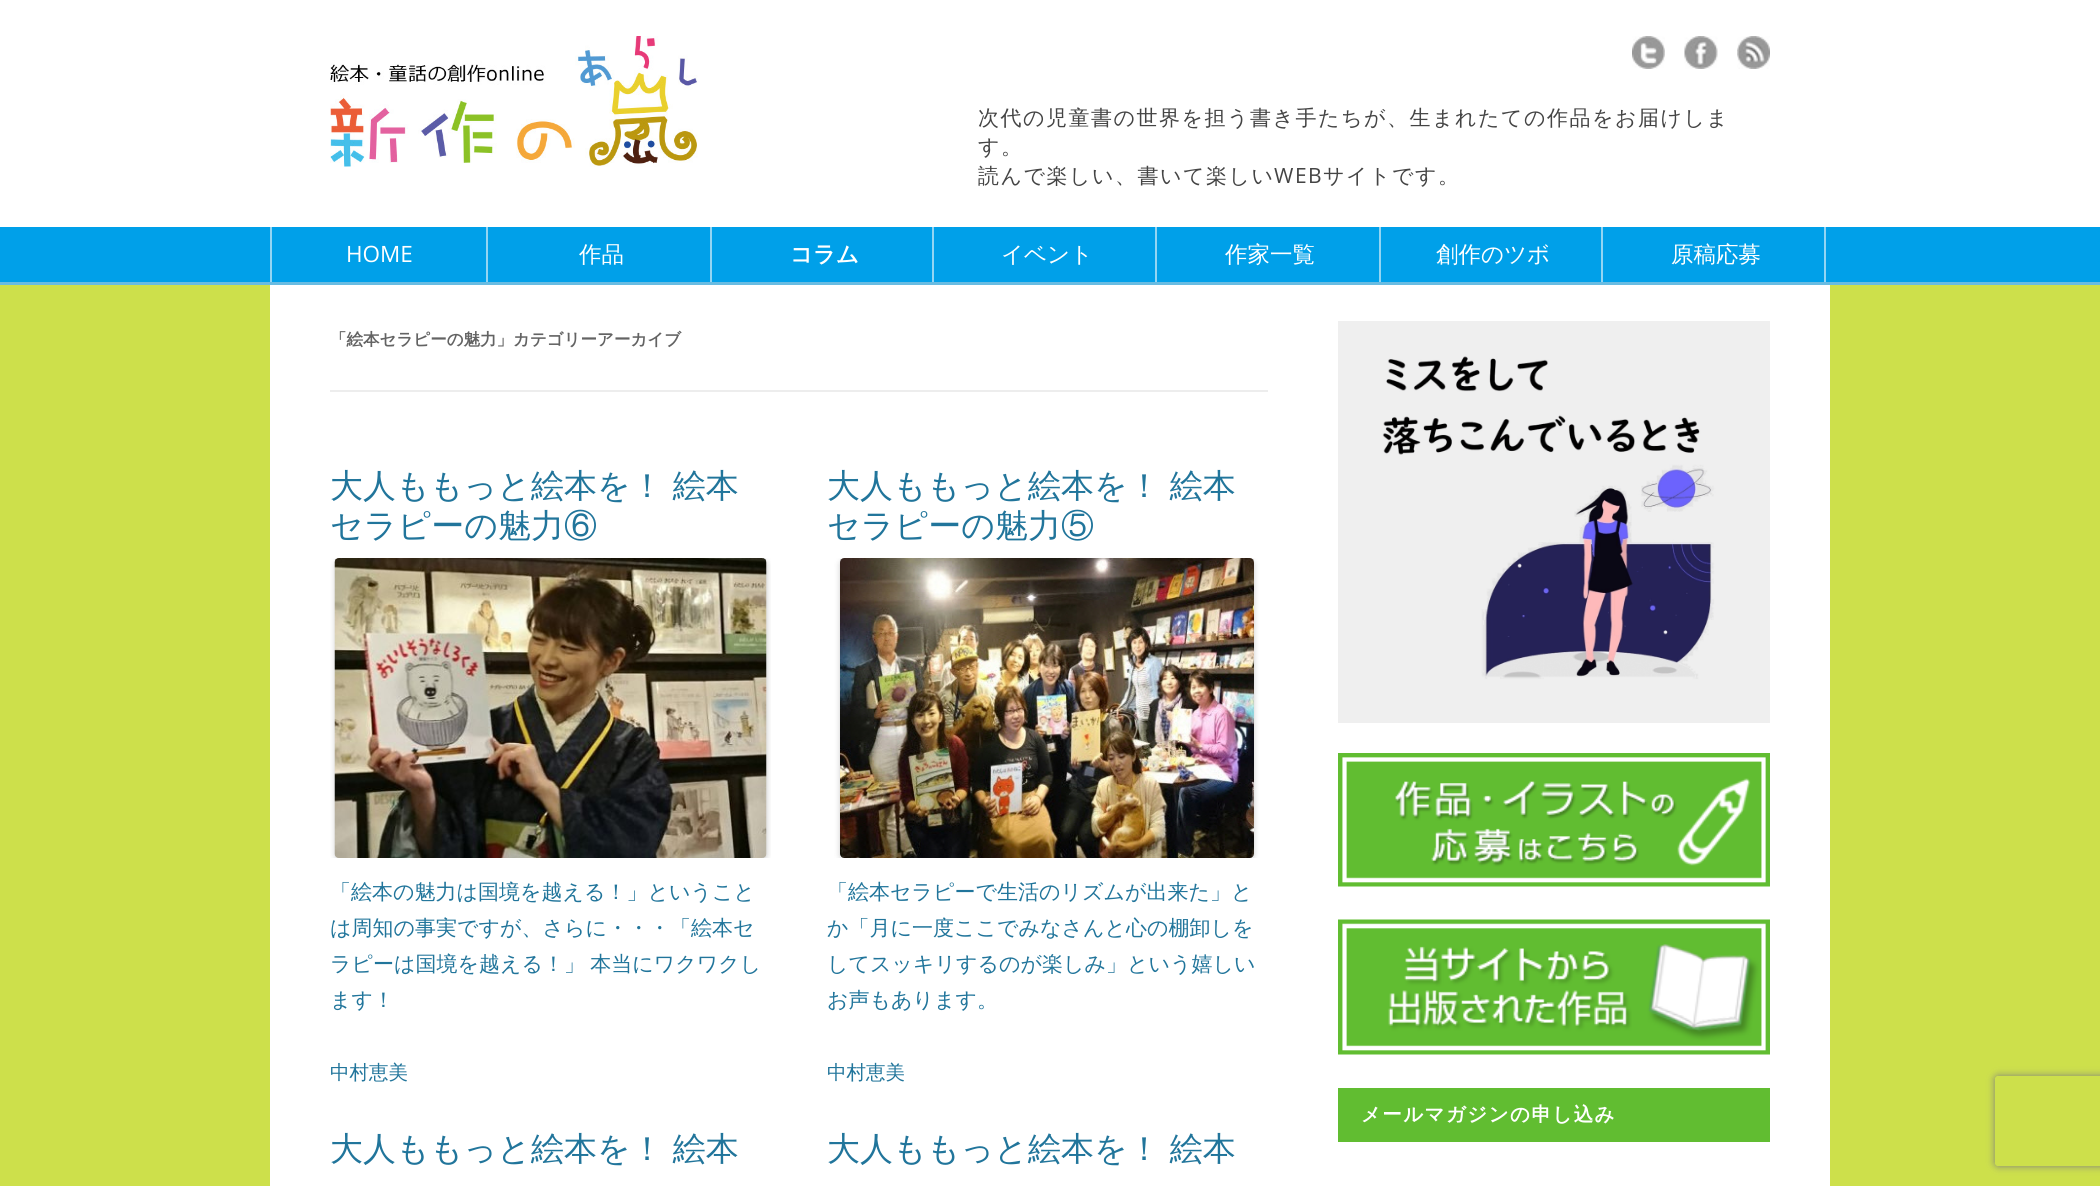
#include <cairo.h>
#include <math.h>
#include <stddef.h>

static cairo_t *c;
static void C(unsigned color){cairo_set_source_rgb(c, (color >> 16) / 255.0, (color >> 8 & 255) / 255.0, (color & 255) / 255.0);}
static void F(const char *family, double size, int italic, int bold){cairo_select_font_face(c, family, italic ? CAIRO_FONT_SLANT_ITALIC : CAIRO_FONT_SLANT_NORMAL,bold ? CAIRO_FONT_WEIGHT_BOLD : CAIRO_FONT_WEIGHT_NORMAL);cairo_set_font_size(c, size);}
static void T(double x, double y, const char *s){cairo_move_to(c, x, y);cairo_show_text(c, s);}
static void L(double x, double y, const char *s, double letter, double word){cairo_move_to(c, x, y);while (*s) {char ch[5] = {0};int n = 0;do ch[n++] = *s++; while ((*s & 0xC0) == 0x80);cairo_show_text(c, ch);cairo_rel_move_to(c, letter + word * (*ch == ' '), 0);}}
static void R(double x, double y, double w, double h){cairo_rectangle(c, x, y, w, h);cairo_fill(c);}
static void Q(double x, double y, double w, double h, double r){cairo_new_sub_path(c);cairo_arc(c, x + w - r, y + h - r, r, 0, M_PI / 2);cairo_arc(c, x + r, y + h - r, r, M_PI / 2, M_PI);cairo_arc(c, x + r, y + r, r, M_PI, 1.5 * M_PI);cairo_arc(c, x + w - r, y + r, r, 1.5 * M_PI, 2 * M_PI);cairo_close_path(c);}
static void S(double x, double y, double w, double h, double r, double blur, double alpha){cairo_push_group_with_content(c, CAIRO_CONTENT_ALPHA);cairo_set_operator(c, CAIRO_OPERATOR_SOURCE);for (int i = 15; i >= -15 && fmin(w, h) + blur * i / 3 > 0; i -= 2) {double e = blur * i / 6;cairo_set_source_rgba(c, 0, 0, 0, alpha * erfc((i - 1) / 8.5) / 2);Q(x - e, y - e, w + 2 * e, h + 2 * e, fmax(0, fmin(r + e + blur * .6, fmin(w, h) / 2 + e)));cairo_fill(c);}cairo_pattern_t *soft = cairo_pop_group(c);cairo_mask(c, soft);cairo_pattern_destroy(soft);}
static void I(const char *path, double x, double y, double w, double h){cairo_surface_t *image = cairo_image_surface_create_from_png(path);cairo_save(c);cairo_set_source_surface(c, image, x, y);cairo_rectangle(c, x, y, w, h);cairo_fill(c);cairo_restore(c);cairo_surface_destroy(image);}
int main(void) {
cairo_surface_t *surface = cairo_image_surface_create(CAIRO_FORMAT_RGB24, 2100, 1186);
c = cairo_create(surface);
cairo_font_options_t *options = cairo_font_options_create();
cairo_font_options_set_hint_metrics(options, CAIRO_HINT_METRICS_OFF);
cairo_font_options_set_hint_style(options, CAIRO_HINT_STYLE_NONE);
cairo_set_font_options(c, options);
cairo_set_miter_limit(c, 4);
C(0xcde04b);
cairo_paint(c);
C(0xffffff);
R(0,0,2100,227);
I("1.png",330,36,368,131);
I("2.png",1632,36,33,33);
I("3.png",1684,36,34,33);
I("4.png",1737,36,33,33);
F("WenQuanYi Zen Hei Medium",21,0,0);
C(0x444444);
L(978,125,"次代の児童書の世界を担う書き手たちが、生まれたての作品をお届けしま",1.5,0);
L(978,154,"す。",1.5,0);
L(978,183,"読んで楽しい、書いて楽しい",1.5,0);
F("Open Sans",21,0,0);
L(1274,183,"WEB",1.5,0);
F("WenQuanYi Zen Hei Medium",21,0,0);
L(1323,183,"サイトです。",1.5,0);
C(0x00a0e9);
R(0,227,2100,55);
C(0x69bce2);
R(0,282,2100,3);
C(0x93d5f3);
R(270,227,2,55);
R(486,227,2,55);
F("Open Sans",22.5,0,0);
C(0xffffff);
T(346,262,"HOME");
C(0x93d5f3);
R(710,227,2,55);
F("WenQuanYi Zen Hei Medium",22.5,0,0);
C(0xffffff);
T(579,262,"作品");
C(0x93d5f3);
R(932,227,2,55);
F("WenQuanYi Zen Hei",22.5,0,1);
C(0xffffff);
T(790,262,"コラム");
C(0x93d5f3);
R(1155,227,2,55);
F("WenQuanYi Zen Hei Medium",22.5,0,0);
C(0xffffff);
T(1001,262,"イベント");
C(0x93d5f3);
R(1379,227,2,55);
C(0xffffff);
T(1225,262,"作家一覧");
C(0x93d5f3);
R(1601,227,2,55);
C(0xffffff);
T(1436,262,"創作のツボ");
C(0x93d5f3);
R(1824,227,2,55);
C(0xffffff);
T(1671,262,"原稿応募");
R(270,285,1560,901);
C(0xededed);
R(330,390,938,2);
F("WenQuanYi Zen Hei",16.5,0,1);
C(0x636363);
T(330,345,"「絵本セラピーの魅力」カテゴリーアーカイブ");
F("WenQuanYi Zen Hei Medium",33,0,0);
C(0x21759b);
L(330,497,"大人ももっと絵本を！ 絵本",0,-1);
T(330,537,"セラピーの魅力⑥");
cairo_save(c);
cairo_rectangle(c,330,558,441,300);
cairo_clip(c);
C(0x000000);
S(335,560,432,300,5,3,.2);
cairo_restore(c);
I("5.png",334,558,433,300);
F("WenQuanYi Zen Hei Medium",21,0,0);
T(330,899,"「絵本の魅力は国境を越える！」ということ");
T(330,935,"は周知の事実ですが、さらに・・・「絵本セ");
L(330,971,"ラピーは国境を越える！」 本当にワクワクし",0,-1);
T(330,1007,"ます！");
F("WenQuanYi Zen Hei Medium",19.5,0,0);
T(330,1079,"中村恵美");
F("WenQuanYi Zen Hei Medium",33,0,0);
L(827,497,"大人ももっと絵本を！ 絵本",0,-1);
T(827,537,"セラピーの魅力⑤");
cairo_save(c);
cairo_rectangle(c,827,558,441,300);
cairo_clip(c);
C(0x000000);
S(840,560,414,300,5,3,.2);
cairo_restore(c);
I("6.png",840,558,414,300);
F("WenQuanYi Zen Hei Medium",21,0,0);
T(827,899,"「絵本セラピーで生活のリズムが出来た」と");
T(827,935,"か「月に一度ここでみなさんと心の棚卸しを");
T(827,971,"してスッキリするのが楽しみ」という嬉しい");
T(827,1007,"お声もあります。");
F("WenQuanYi Zen Hei Medium",19.5,0,0);
T(827,1079,"中村恵美");
F("WenQuanYi Zen Hei Medium",33,0,0);
L(330,1160,"大人ももっと絵本を！ 絵本",0,-1);
L(827,1160,"大人ももっと絵本を！ 絵本",0,-1);
I("7.png",1338,321,432,402);
I("8.png",1338,753,432,134);
I("9.png",1338,919,432,136);
C(0x61bd31);
R(1338,1088,432,54);
F("WenQuanYi Zen Hei",19.5,0,1);
C(0xffffff);
L(1361,1121,"メールマガジンの申し込み",1.4,0);
cairo_save(c);
cairo_set_fill_rule(c,CAIRO_FILL_RULE_EVEN_ODD);
cairo_new_path(c);
cairo_move_to(c,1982,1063);
cairo_line_to(c,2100,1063);
cairo_line_to(c,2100,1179);
cairo_line_to(c,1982,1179);
cairo_close_path(c);
cairo_move_to(c,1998,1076);
cairo_line_to(c,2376,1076);
cairo_curve_to(c,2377.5,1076,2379,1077.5,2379,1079);
cairo_line_to(c,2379,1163);
cairo_curve_to(c,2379,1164.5,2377.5,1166,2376,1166);
cairo_line_to(c,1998,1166);
cairo_curve_to(c,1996.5,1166,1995,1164.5,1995,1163);
cairo_line_to(c,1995,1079);
cairo_curve_to(c,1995,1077.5,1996.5,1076,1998,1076);
cairo_close_path(c);
cairo_clip(c);
C(0x808080);
S(1995,1076,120,90,3,4,1);
cairo_restore(c);
cairo_surface_write_to_png(surface, "o.png");
cairo_font_options_destroy(options);
cairo_destroy(c);
cairo_surface_destroy(surface);
return 0;
}
